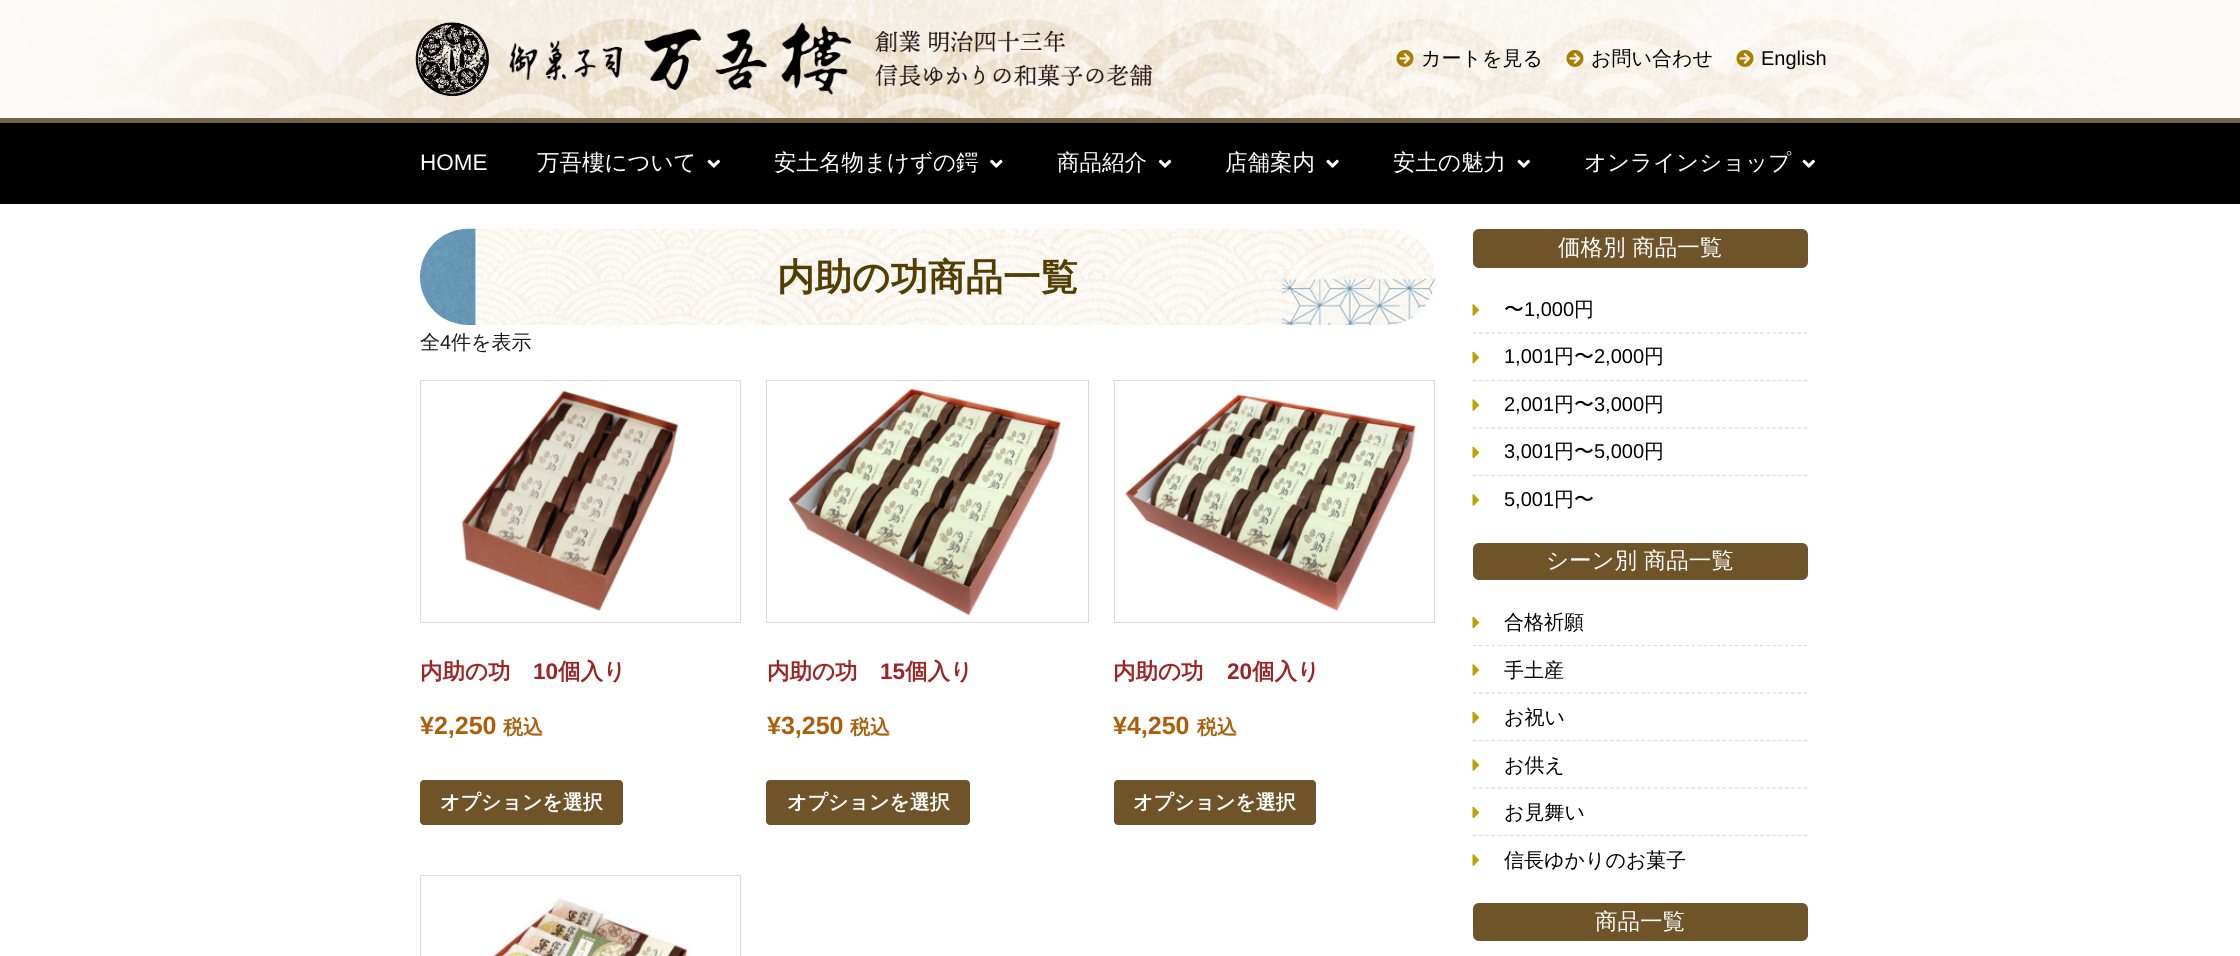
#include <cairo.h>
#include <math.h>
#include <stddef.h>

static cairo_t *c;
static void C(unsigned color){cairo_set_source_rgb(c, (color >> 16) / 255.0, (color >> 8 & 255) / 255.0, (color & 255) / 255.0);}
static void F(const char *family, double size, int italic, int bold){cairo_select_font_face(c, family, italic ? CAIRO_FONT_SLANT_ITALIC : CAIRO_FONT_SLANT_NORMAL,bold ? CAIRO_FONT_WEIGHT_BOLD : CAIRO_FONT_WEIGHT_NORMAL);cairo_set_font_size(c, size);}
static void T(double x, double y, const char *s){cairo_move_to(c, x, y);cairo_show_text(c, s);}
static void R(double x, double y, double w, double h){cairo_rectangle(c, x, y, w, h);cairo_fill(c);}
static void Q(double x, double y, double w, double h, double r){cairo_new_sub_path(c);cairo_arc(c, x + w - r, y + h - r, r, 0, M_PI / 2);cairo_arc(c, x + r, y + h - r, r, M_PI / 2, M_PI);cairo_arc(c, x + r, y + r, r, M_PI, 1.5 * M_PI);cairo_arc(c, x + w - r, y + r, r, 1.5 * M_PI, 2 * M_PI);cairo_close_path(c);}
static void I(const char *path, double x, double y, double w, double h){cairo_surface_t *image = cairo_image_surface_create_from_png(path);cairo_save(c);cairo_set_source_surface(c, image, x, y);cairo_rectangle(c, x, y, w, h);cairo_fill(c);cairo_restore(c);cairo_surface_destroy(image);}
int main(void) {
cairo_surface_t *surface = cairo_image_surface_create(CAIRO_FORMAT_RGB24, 2240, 956);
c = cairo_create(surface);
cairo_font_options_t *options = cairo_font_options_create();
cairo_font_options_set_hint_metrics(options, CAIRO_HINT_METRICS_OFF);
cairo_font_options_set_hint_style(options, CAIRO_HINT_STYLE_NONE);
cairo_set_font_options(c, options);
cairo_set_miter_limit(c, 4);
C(0xffffff);
cairo_paint(c);
I("1.png",0,0,2240,118);
C(0x726445);
R(0,118,2240,5);
I("2.png",415,22,74,74);
I("3.png",509,22,342,73);
I("4.png",875,30,278,57);
I("5.png",1396,50,18,17);
F("WenQuanYi Zen Hei Medium",20,0,0);
C(0x000000);
T(1421,65,"カートを見る");
I("6.png",1566,50,18,17);
T(1591,65,"お問い合わせ");
I("7.png",1736,50,18,17);
F("Liberation Sans",20,0,0);
T(1761,65,"English");
R(0,123,2240,81);
F("Liberation Sans",22.5,0,0);
C(0xffffff);
T(420,170,"HOME");
F("WenQuanYi Zen Hei Medium",22.5,0,0);
T(537,170,"万吾樓について");
I("8.png",707,159,13,9);
T(774,170,"安土名物まけずの鍔");
I("9.png",990,159,13,9);
T(1057,170,"商品紹介");
I("10.png",1158,159,14,9);
T(1225,170,"店舗案内");
I("11.png",1326,159,13,9);
T(1393,170,"安土の魅力");
I("8.png",1517,159,13,9);
T(1584,170,"オンラインショップ");
I("8.png",1802,159,13,9);
I("12.png",420,228,1015,97);
F("WenQuanYi Zen Hei",37.5,0,1);
C(0x523e03);
T(777,290,"内助の功商品一覧");
F("WenQuanYi Zen Hei Medium",20,0,0);
C(0x1a1a1a);
T(420,349,"全");
F("Liberation Sans",20,0,0);
T(440,349,"4");
F("WenQuanYi Zen Hei Medium",20,0,0);
T(451,349,"件を表示");
cairo_rectangle(c,420.5,380.5,320,242);
C(0xdadada);
cairo_set_line_width(c,1);
cairo_stroke(c);
I("13.png",461,390,218,221);
F("WenQuanYi Zen Hei",22.5,0,1);
C(0x9b2626);
T(420,679,"内助の功");
F("Liberation Sans",22.5,0,1);
T(533,679,"10");
F("WenQuanYi Zen Hei",22.5,0,1);
T(558,679,"個入り");
F("Liberation Sans",25,0,1);
C(0xab5f0b);
T(420,734,"¥2,250");
F("WenQuanYi Zen Hei",20,0,1);
T(503,734,"税込");
C(0x6e5428);
Q(420,780,203,45,4);
cairo_fill(c);
C(0xffffff);
T(440,809,"オプションを選択");
cairo_rectangle(c,766.5,380.5,322,242);
C(0xdadada);
cairo_stroke(c);
I("14.png",788,388,273,228);
F("WenQuanYi Zen Hei",22.5,0,1);
C(0x9b2626);
T(767,679,"内助の功");
F("Liberation Sans",22.5,0,1);
T(880,679,"15");
F("WenQuanYi Zen Hei",22.5,0,1);
T(905,679,"個入り");
F("Liberation Sans",25,0,1);
C(0xab5f0b);
T(767,734,"¥3,250");
F("WenQuanYi Zen Hei",20,0,1);
T(850,734,"税込");
C(0x6e5428);
Q(766,780,204,45,4);
cairo_fill(c);
C(0xffffff);
T(787,809,"オプションを選択");
cairo_rectangle(c,1114.5,380.5,320,242);
C(0xdadada);
cairo_stroke(c);
I("15.png",1125,394,291,217);
F("WenQuanYi Zen Hei",22.5,0,1);
C(0x9b2626);
T(1113,679,"内助の功");
F("Liberation Sans",22.5,0,1);
T(1227,679,"20");
F("WenQuanYi Zen Hei",22.5,0,1);
T(1252,679,"個入り");
F("Liberation Sans",25,0,1);
C(0xab5f0b);
T(1113,734,"¥4,250");
F("WenQuanYi Zen Hei",20,0,1);
T(1197,734,"税込");
C(0x6e5428);
Q(1114,780,202,45,4);
cairo_fill(c);
C(0xffffff);
T(1133,809,"オプションを選択");
cairo_rectangle(c,420.5,875.5,320,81);
C(0xdadada);
cairo_stroke(c);
I("16.png",481,898,212,58);
C(0x6e5428);
Q(1473,229,335,39,6);
cairo_fill(c);
F("WenQuanYi Zen Hei Medium",22.5,0,0);
C(0xffffff);
T(1558,255,"価格別 商品一覧");
I("17.png",1472,304,7,12);
F("WenQuanYi Zen Hei Medium",20,0,0);
C(0x000000);
T(1504,316,"〜");
F("Liberation Sans",20,0,0);
T(1524,316,"1,000");
F("WenQuanYi Zen Hei Medium",20,0,0);
T(1574,316,"円");
cairo_new_path(c);
cairo_move_to(c,1472.5,333);
cairo_line_to(c,1807.5,333);
C(0xdddddd);
cairo_set_line_width(c,1.2);
cairo_set_dash(c,(double[]){3.75,2.5},2,0);
cairo_stroke(c);
I("18.png",1472,351,8,13);
F("Liberation Sans",20,0,0);
C(0x000000);
T(1504,363,"1,001");
F("WenQuanYi Zen Hei Medium",20,0,0);
T(1554,363,"円〜");
F("Liberation Sans",20,0,0);
T(1594,363,"2,000");
F("WenQuanYi Zen Hei Medium",20,0,0);
T(1644,363,"円");
cairo_new_path(c);
cairo_move_to(c,1472.5,380.5);
cairo_line_to(c,1807.5,380.5);
C(0xdddddd);
cairo_stroke(c);
I("17.png",1472,399,7,12);
F("Liberation Sans",20,0,0);
C(0x000000);
T(1504,411,"2,001");
F("WenQuanYi Zen Hei Medium",20,0,0);
T(1554,411,"円〜");
F("Liberation Sans",20,0,0);
T(1594,411,"3,000");
F("WenQuanYi Zen Hei Medium",20,0,0);
T(1644,411,"円");
cairo_new_path(c);
cairo_move_to(c,1472.5,428);
cairo_line_to(c,1807.5,428);
C(0xdddddd);
cairo_stroke(c);
I("18.png",1472,446,8,13);
F("Liberation Sans",20,0,0);
C(0x000000);
T(1504,458,"3,001");
F("WenQuanYi Zen Hei Medium",20,0,0);
T(1554,458,"円〜");
F("Liberation Sans",20,0,0);
T(1594,458,"5,000");
F("WenQuanYi Zen Hei Medium",20,0,0);
T(1644,458,"円");
cairo_new_path(c);
cairo_move_to(c,1472.5,475.5);
cairo_line_to(c,1807.5,475.5);
C(0xdddddd);
cairo_stroke(c);
I("17.png",1472,494,7,12);
F("Liberation Sans",20,0,0);
C(0x000000);
T(1504,506,"5,001");
F("WenQuanYi Zen Hei Medium",20,0,0);
T(1554,506,"円〜");
C(0x6e5428);
Q(1473,543,335,37,6);
cairo_fill(c);
F("WenQuanYi Zen Hei Medium",22.5,0,0);
C(0xffffff);
T(1546,568,"シーン別 商品一覧");
I("18.png",1472,616,8,13);
F("WenQuanYi Zen Hei Medium",20,0,0);
C(0x000000);
T(1504,629,"合格祈願");
cairo_new_path(c);
cairo_move_to(c,1472.5,645.5);
cairo_line_to(c,1807.5,645.5);
C(0xdddddd);
cairo_stroke(c);
I("17.png",1472,664,7,12);
C(0x000000);
T(1504,677,"手土産");
cairo_new_path(c);
cairo_move_to(c,1472.5,693);
cairo_line_to(c,1807.5,693);
C(0xdddddd);
cairo_stroke(c);
I("18.png",1472,711,8,13);
C(0x000000);
T(1504,724,"お祝い");
cairo_new_path(c);
cairo_move_to(c,1472.5,740.5);
cairo_line_to(c,1807.5,740.5);
C(0xdddddd);
cairo_stroke(c);
I("17.png",1472,759,7,12);
C(0x000000);
T(1504,772,"お供え");
cairo_new_path(c);
cairo_move_to(c,1472.5,788);
cairo_line_to(c,1807.5,788);
C(0xdddddd);
cairo_stroke(c);
I("18.png",1472,806,8,13);
C(0x000000);
T(1504,819,"お見舞い");
cairo_new_path(c);
cairo_move_to(c,1472.5,835.5);
cairo_line_to(c,1807.5,835.5);
C(0xdddddd);
cairo_stroke(c);
I("17.png",1472,854,7,12);
C(0x000000);
T(1504,867,"信長ゆかりのお菓子");
C(0x6e5428);
Q(1473,903,335,38,6);
cairo_fill(c);
F("WenQuanYi Zen Hei Medium",22.5,0,0);
C(0xffffff);
T(1595,929,"商品一覧");
cairo_surface_write_to_png(surface, "o.png");
cairo_font_options_destroy(options);
cairo_destroy(c);
cairo_surface_destroy(surface);
return 0;
}
